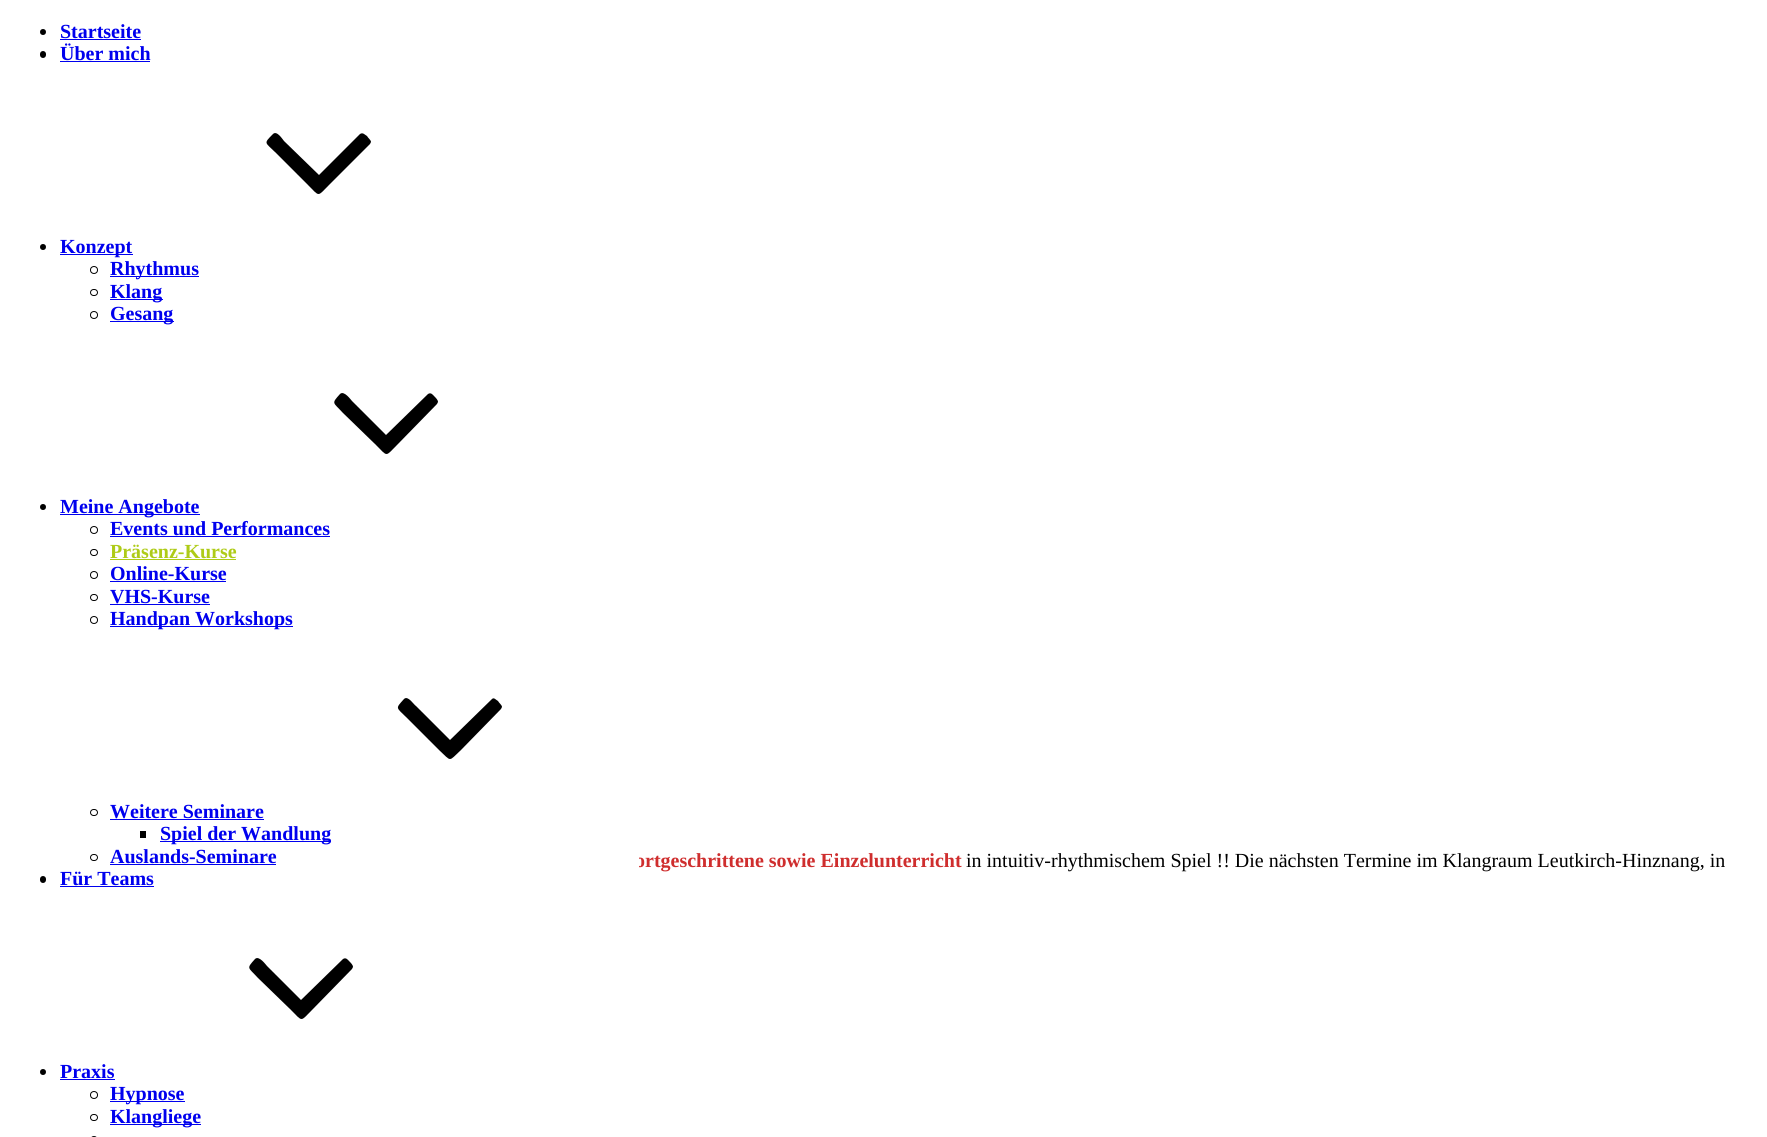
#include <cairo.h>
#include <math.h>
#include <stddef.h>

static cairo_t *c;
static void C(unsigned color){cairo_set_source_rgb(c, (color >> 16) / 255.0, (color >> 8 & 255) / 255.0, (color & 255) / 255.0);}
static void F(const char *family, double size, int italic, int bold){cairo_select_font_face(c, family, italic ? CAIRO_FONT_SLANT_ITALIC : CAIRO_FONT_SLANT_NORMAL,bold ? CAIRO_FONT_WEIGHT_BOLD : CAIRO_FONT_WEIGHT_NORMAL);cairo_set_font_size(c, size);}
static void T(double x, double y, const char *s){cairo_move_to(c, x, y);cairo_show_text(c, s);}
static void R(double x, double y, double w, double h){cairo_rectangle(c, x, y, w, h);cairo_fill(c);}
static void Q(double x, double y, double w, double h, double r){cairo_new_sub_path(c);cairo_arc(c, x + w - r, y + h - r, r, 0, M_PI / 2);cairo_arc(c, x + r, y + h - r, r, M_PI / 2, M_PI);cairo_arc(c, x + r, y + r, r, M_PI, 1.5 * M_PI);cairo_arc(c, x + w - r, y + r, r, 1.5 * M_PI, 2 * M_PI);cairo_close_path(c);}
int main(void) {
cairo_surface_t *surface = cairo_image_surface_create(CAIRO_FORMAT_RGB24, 1767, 1137);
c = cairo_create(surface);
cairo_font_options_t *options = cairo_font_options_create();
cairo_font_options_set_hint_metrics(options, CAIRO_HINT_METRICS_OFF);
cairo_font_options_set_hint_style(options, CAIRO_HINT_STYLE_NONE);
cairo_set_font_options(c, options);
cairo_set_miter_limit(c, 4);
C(0xffffff);
cairo_paint(c);
F("Liberation Serif",20,0,1);
C(0xcf2e2e);
T(635,867,"ortgeschrittene sowie Einzelunterricht");
C(0xffffff);
R(635,857,4,11);
C(0x000000);
cairo_new_path(c);
cairo_arc(c,43,32,3,0,2 * M_PI);
cairo_fill(c);
C(0x0000ee);
T(60,38,"Startseite");
R(60,39,81,1);
C(0x000000);
Q(40,51,6,7,3);
cairo_fill(c);
C(0x0000ee);
T(60,60,"Über mich");
R(60,61,90,1);
C(0x000000);
cairo_new_path(c);
cairo_arc(c,43,247,3,0,2 * M_PI);
cairo_fill(c);
C(0x0000ee);
R(60,254,73,1);
T(60,253,"Konzept");
C(0x000000);
cairo_new_path(c);
cairo_move_to(c,371,142);
cairo_line_to(c,370,144);
cairo_line_to(c,329,185);
cairo_curve_to(c,317,197,320,197,308,185);
cairo_line_to(c,276,153);
cairo_curve_to(c,265,142,263,144,273,134);
cairo_curve_to(c,277,130,283,140,284,141);
cairo_line_to(c,319,175);
cairo_line_to(c,360,134);
cairo_curve_to(c,363,132,365,135,367,136);
cairo_curve_to(c,368,138,371,140,371,142);
cairo_close_path(c);
cairo_fill(c);
cairo_arc(c,94,270,3.5,0,2 * M_PI);
cairo_set_line_width(c,1);
cairo_stroke(c);
C(0x0000ee);
R(110,276,89,1);
T(110,275,"Rhythmus");
Q(90.5,289.5,7,6,3);
C(0x000000);
cairo_stroke(c);
C(0x0000ee);
R(110,299,53,1);
T(110,298,"Klang");
cairo_new_path(c);
cairo_arc(c,94,315,3.5,0,2 * M_PI);
C(0x000000);
cairo_stroke(c);
C(0x0000ee);
R(110,321,64,1);
T(110,320,"Gesang");
C(0x000000);
cairo_new_path(c);
cairo_arc(c,43,507,3,0,2 * M_PI);
cairo_fill(c);
C(0x0000ee);
R(60,514,140,1);
T(60,513,"Meine Angebote");
C(0x000000);
cairo_new_path(c);
cairo_move_to(c,438,402);
cairo_line_to(c,437,404);
cairo_line_to(c,397,445);
cairo_curve_to(c,385,457,388,457,376,445);
cairo_line_to(c,343,413);
cairo_curve_to(c,333,402,331,404,340,394);
cairo_curve_to(c,344,390,351,400,352,401);
cairo_line_to(c,386,435);
cairo_line_to(c,428,394);
cairo_curve_to(c,431,392,433,395,434,396);
cairo_curve_to(c,436,398,438,400,438,402);
cairo_close_path(c);
cairo_fill(c);
cairo_arc(c,94,530,3.5,0,2 * M_PI);
cairo_stroke(c);
C(0x0000ee);
T(110,535,"Events und Performances");
R(110,536,220,1);
Q(90.5,549.5,7,6,3);
C(0x000000);
cairo_stroke(c);
C(0xaecb17);
T(110,558,"Präsenz-Kurse");
R(110,559,126,1);
cairo_new_path(c);
cairo_arc(c,94,575,3.5,0,2 * M_PI);
C(0x000000);
cairo_stroke(c);
C(0x0000ee);
T(110,580,"Online-Kurse");
R(110,581,116,1);
Q(90.5,594.5,7,6,3);
C(0x000000);
cairo_stroke(c);
C(0x0000ee);
T(110,603,"VHS-Kurse");
R(110,604,100,1);
cairo_new_path(c);
cairo_arc(c,94,620,3.5,0,2 * M_PI);
C(0x000000);
cairo_stroke(c);
C(0x0000ee);
R(110,626,183,1);
T(110,625,"Handpan Workshops");
Q(90.5,809.5,7,6,3);
C(0x000000);
cairo_stroke(c);
C(0x0000ee);
T(110,818,"Weitere Seminare");
R(110,819,154,1);
C(0x000000);
cairo_new_path(c);
cairo_move_to(c,502,707);
cairo_line_to(c,501,709);
cairo_line_to(c,461,750);
cairo_curve_to(c,448,762,452,762,439,750);
cairo_line_to(c,407,718);
cairo_curve_to(c,396,707,395,709,404,699);
cairo_curve_to(c,408,695,414,705,416,706);
cairo_line_to(c,450,740);
cairo_line_to(c,492,699);
cairo_curve_to(c,494,697,496,700,498,701);
cairo_curve_to(c,499,703,502,705,502,707);
cairo_close_path(c);
cairo_fill(c);
R(140,831,6,7);
C(0x0000ee);
R(160,841,171,1);
T(160,840,"Spiel der Wandlung");
Q(90.5,854.5,7,6,3);
C(0x000000);
cairo_stroke(c);
C(0x0000ee);
T(110,863,"Auslands-Seminare");
R(110,864,166,1);
C(0x000000);
Q(40,876,6,7,3);
cairo_fill(c);
C(0x0000ee);
T(60,885,"Für Teams");
R(60,886,94,1);
C(0x000000);
cairo_new_path(c);
cairo_arc(c,43,1072,3,0,2 * M_PI);
cairo_fill(c);
C(0x0000ee);
T(60,1078,"Praxis");
R(60,1079,55,1);
C(0x000000);
cairo_new_path(c);
cairo_move_to(c,353,967);
cairo_line_to(c,352,969);
cairo_line_to(c,312,1010);
cairo_curve_to(c,300,1022,303,1022,291,1010);
cairo_line_to(c,258,978);
cairo_curve_to(c,248,967,246,969,255,959);
cairo_curve_to(c,259,955,266,965,267,966);
cairo_line_to(c,301,1000);
cairo_line_to(c,343,959);
cairo_curve_to(c,346,957,348,960,349,961);
cairo_curve_to(c,351,963,353,965,353,967);
cairo_close_path(c);
cairo_fill(c);
cairo_arc(c,94,1095,3.5,0,2 * M_PI);
cairo_stroke(c);
C(0x0000ee);
R(110,1101,75,1);
T(110,1100,"Hypnose");
Q(90.5,1114.5,7,6,3);
C(0x000000);
cairo_stroke(c);
C(0x0000ee);
R(110,1124,91,1);
T(110,1123,"Klangliege");
Q(90.5,1136.5,7,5,3.5);
C(0x000000);
cairo_stroke(c);
F("Liberation Serif",20,0,0);
T(966,867,"in intuitiv-rhythmischem Spiel !! Die nächsten Termine im Klangraum Leutkirch-Hinznang, in");
cairo_surface_write_to_png(surface, "o.png");
cairo_font_options_destroy(options);
cairo_destroy(c);
cairo_surface_destroy(surface);
return 0;
}
